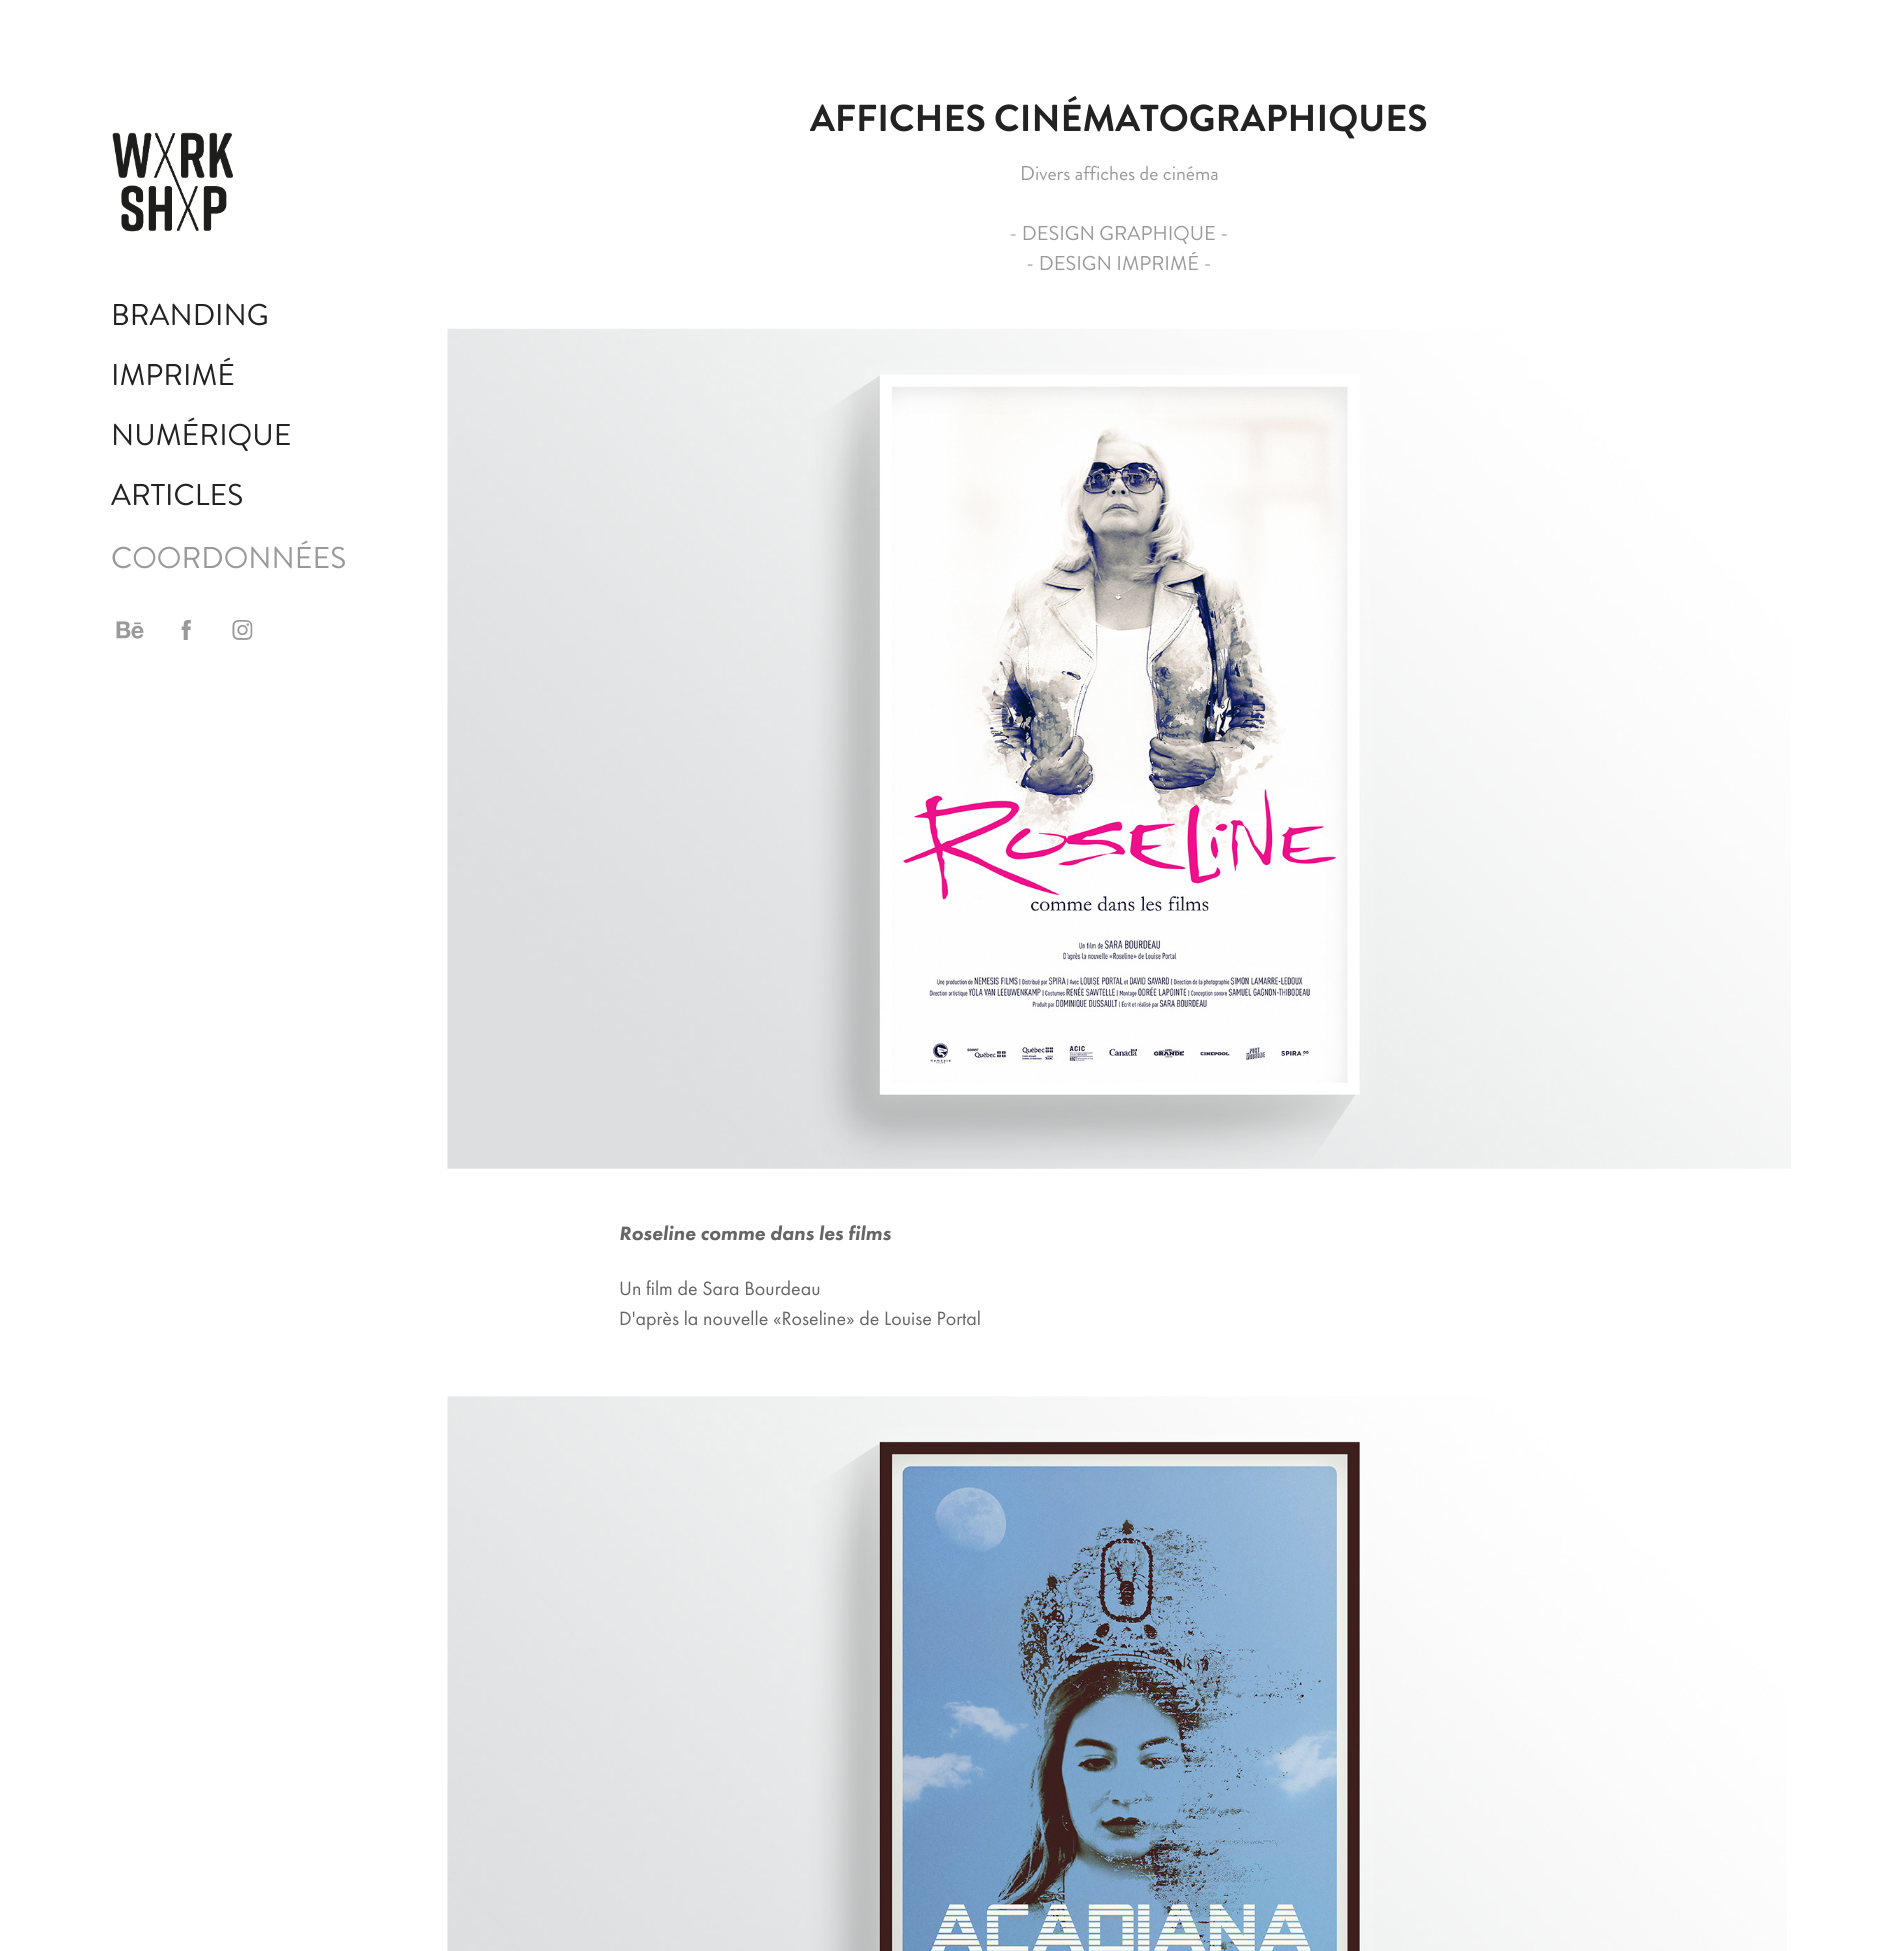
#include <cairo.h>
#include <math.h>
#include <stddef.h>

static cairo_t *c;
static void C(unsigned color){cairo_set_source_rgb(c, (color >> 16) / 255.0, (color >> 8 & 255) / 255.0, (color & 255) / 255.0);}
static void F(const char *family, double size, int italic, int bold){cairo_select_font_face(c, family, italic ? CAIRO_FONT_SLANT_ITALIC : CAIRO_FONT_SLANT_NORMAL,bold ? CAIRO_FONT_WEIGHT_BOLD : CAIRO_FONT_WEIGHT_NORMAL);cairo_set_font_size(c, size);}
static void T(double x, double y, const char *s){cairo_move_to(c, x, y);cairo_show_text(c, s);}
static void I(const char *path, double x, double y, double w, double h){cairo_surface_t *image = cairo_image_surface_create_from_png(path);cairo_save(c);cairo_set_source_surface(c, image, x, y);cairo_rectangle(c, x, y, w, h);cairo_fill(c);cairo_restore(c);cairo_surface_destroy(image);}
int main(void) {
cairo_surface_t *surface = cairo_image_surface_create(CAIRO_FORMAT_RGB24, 1902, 1951);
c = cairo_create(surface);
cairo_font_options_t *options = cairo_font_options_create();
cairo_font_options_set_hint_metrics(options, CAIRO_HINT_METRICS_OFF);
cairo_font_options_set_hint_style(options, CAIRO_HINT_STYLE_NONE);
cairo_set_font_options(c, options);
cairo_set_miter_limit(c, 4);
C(0xffffff);
cairo_paint(c);
I("1.png",112,132,121,100);
F("Brandon Grotesque",30,0,0);
C(0x222222);
T(111,325,"BRANDING");
T(111,385,"IMPRIMÉ");
T(111,445,"NUMÉRIQUE");
T(111,505,"ARTICLES");
C(0x999999);
T(111,568,"COORDONNÉES");
I("2.png",116,621,28,18);
I("3.png",181,620,10,20);
I("4.png",232,620,21,20);
F("Brandon Grotesque",37.5,0,1);
C(0x222222);
T(810,131,"AFFICHES CINÉMATOGRAPHIQUES");
F("Brandon Grotesque",20,0,0);
C(0x999999);
T(1020,180,"Divers affiches de cinéma");
T(1009,240,"- DESIGN GRAPHIQUE -");
T(1026,270,"- DESIGN IMPRIMÉ -");
I("5.png",447,328,1344,841);
F("Futura PT Black",20,1,0);
C(0x666666);
T(619,1240,"Roseline comme dans les films");
F("Futura PT",20,0,0);
T(619,1295,"Un film de Sara Bourdeau");
T(619,1325,"D'après la nouvelle «Roseline» de Louise Portal");
I("6.png",447,1396,1340,555);
cairo_surface_write_to_png(surface, "o.png");
cairo_font_options_destroy(options);
cairo_destroy(c);
cairo_surface_destroy(surface);
return 0;
}
